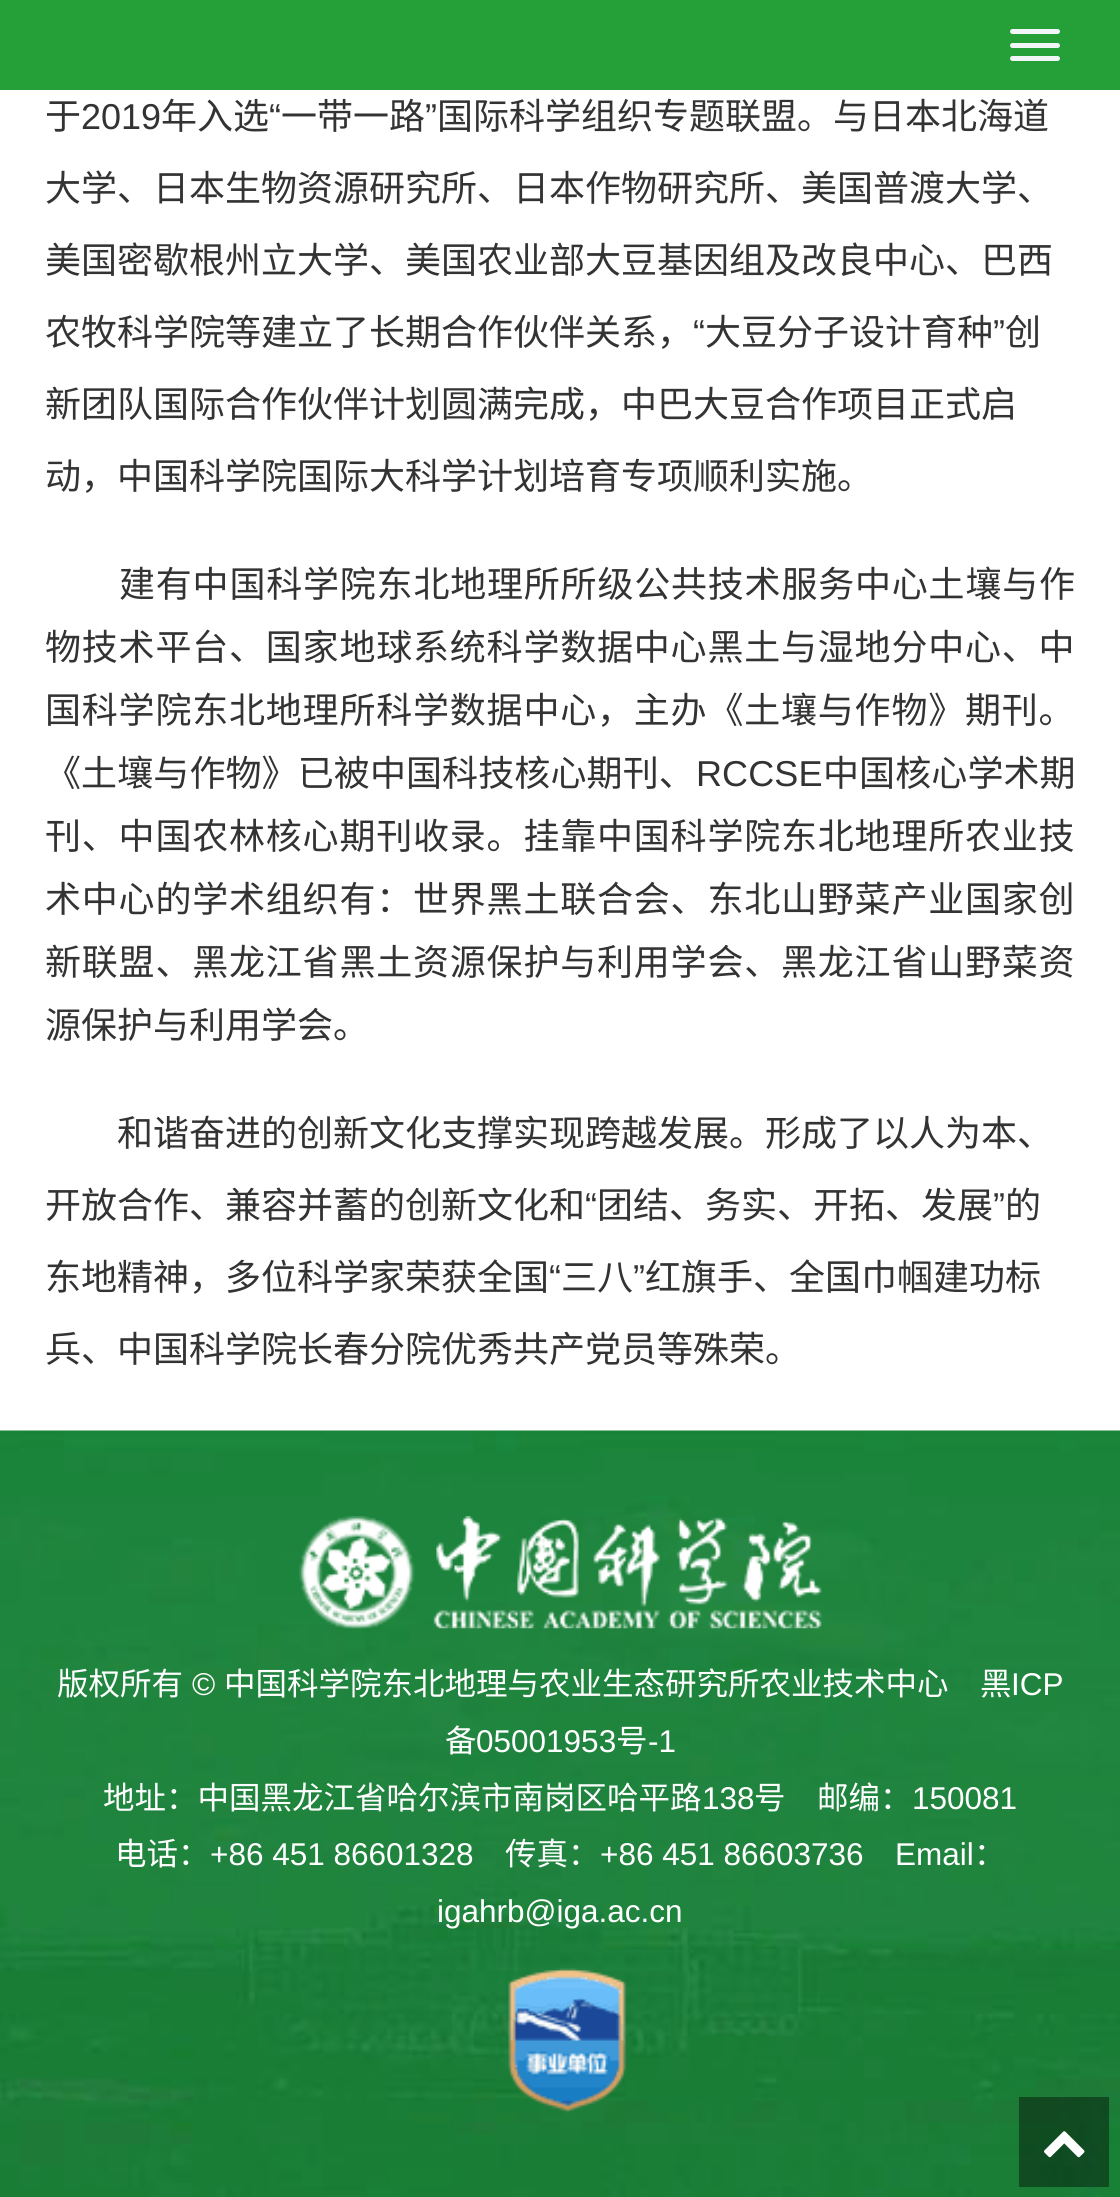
#include <cairo.h>
#include <math.h>
#include <stddef.h>

static cairo_t *c;
static void C(unsigned color){cairo_set_source_rgb(c, (color >> 16) / 255.0, (color >> 8 & 255) / 255.0, (color & 255) / 255.0);}
static void F(const char *family, double size, int italic, int bold){cairo_select_font_face(c, family, italic ? CAIRO_FONT_SLANT_ITALIC : CAIRO_FONT_SLANT_NORMAL,bold ? CAIRO_FONT_WEIGHT_BOLD : CAIRO_FONT_WEIGHT_NORMAL);cairo_set_font_size(c, size);}
static void T(double x, double y, const char *s){cairo_move_to(c, x, y);cairo_show_text(c, s);}
static void L(double x, double y, const char *s, double letter, double word){cairo_move_to(c, x, y);while (*s) {char ch[5] = {0};int n = 0;do ch[n++] = *s++; while ((*s & 0xC0) == 0x80);cairo_show_text(c, ch);cairo_rel_move_to(c, letter + word * (*ch == ' '), 0);}}
static void R(double x, double y, double w, double h){cairo_rectangle(c, x, y, w, h);cairo_fill(c);}
static void Q(double x, double y, double w, double h, double r){cairo_new_sub_path(c);cairo_arc(c, x + w - r, y + h - r, r, 0, M_PI / 2);cairo_arc(c, x + r, y + h - r, r, M_PI / 2, M_PI);cairo_arc(c, x + r, y + r, r, M_PI, 1.5 * M_PI);cairo_arc(c, x + w - r, y + r, r, 1.5 * M_PI, 2 * M_PI);cairo_close_path(c);}
static void I(const char *path, double x, double y, double w, double h){cairo_surface_t *image = cairo_image_surface_create_from_png(path);cairo_save(c);cairo_set_source_surface(c, image, x, y);cairo_rectangle(c, x, y, w, h);cairo_fill(c);cairo_restore(c);cairo_surface_destroy(image);}
int main(void) {
cairo_surface_t *surface = cairo_image_surface_create(CAIRO_FORMAT_RGB24, 1120, 2197);
c = cairo_create(surface);
cairo_font_options_t *options = cairo_font_options_create();
cairo_font_options_set_hint_metrics(options, CAIRO_HINT_METRICS_OFF);
cairo_font_options_set_hint_style(options, CAIRO_HINT_STYLE_NONE);
cairo_set_font_options(c, options);
cairo_set_miter_limit(c, 4);
C(0xffffff);
cairo_paint(c);
C(0x25a038);
R(0,0,1120,90);
C(0xf3f6f9);
Q(1010,29,50,5,2.5);
cairo_fill(c);
Q(1010,43,50,5,2.5);
cairo_fill(c);
Q(1010,56,50,5,2.5);
cairo_fill(c);
F("Noto Sans CJK SC",36,0,0);
C(0x333333);
T(45,129,"于");
F("Liberation Sans",36,0,0);
T(81,129,"2019");
F("Noto Sans CJK SC",36,0,0);
T(161,129,"年入选");
F("Liberation Sans",36,0,0);
T(269,129,"“");
F("Noto Sans CJK SC",36,0,0);
T(281,129,"一带一路");
F("Liberation Sans",36,0,0);
T(425,129,"”");
F("Noto Sans CJK SC",36,0,0);
T(437,129,"国际科学组织专题联盟。与日本北海道");
T(45,201,"大学、日本生物资源研究所、日本作物研究所、美国普渡大学、");
T(45,273,"美国密歇根州立大学、美国农业部大豆基因组及改良中心、巴西");
T(45,345,"农牧科学院等建立了长期合作伙伴关系，");
F("Liberation Sans",36,0,0);
T(693,345,"“");
F("Noto Sans CJK SC",36,0,0);
T(705,345,"大豆分子设计育种");
F("Liberation Sans",36,0,0);
T(993,345,"”");
F("Noto Sans CJK SC",36,0,0);
T(1005,345,"创");
T(45,417,"新团队国际合作伙伴计划圆满完成，中巴大豆合作项目正式启");
T(45,489,"动，中国科学院国际大科学计划培育专项顺利实施。");
L(119,597,"建有中国科学院东北地理所所级公共技术服务中心土壤与作",.8,0);
L(45,660,"物技术平台、国家地球系统科学数据中心黑土与湿地分中心、中",.8,0);
L(45,723,"国科学院东北地理所科学数据中心，主办《土壤与作物》期刊。",.8,0);
L(45,786,"《土壤与作物》已被中国科技核心期刊、",.1,0);
F("Liberation Sans",36,0,0);
L(696,786,"RCCSE",.1,0);
F("Noto Sans CJK SC",36,0,0);
L(823,786,"中国核心学术期",.1,0);
L(45,849,"刊、中国农林核心期刊收录。挂靠中国科学院东北地理所农业技",.8,0);
L(45,912,"术中心的学术组织有：世界黑土联合会、东北山野菜产业国家创",.8,0);
L(45,975,"新联盟、黑龙江省黑土资源保护与利用学会、黑龙江省山野菜资",.8,0);
T(45,1038,"源保护与利用学会。");
T(117,1146,"和谐奋进的创新文化支撑实现跨越发展。形成了以人为本、");
T(45,1218,"开放合作、兼容并蓄的创新文化和");
F("Liberation Sans",36,0,0);
T(585,1218,"“");
F("Noto Sans CJK SC",36,0,0);
T(597,1218,"团结、务实、开拓、发展");
F("Liberation Sans",36,0,0);
T(993,1218,"”");
F("Noto Sans CJK SC",36,0,0);
T(1005,1218,"的");
T(45,1290,"东地精神，多位科学家荣获全国");
F("Liberation Sans",36,0,0);
T(549,1290,"“");
F("Noto Sans CJK SC",36,0,0);
T(561,1290,"三八");
F("Liberation Sans",36,0,0);
T(633,1290,"”");
F("Noto Sans CJK SC",36,0,0);
T(645,1290,"红旗手、全国巾帼建功标");
T(45,1362,"兵、中国科学院长春分院优秀共产党员等殊荣。");
I("1.png",0,1430,1120,767);
I("2.png",299,1516,523,113);
F("Noto Sans CJK SC",31.5,0,0);
C(0xffffff);
T(57,1695,"版权所有");
F("Liberation Sans",31.5,0,0);
T(192,1695,"©");
F("Noto Sans CJK SC",31.5,0,0);
T(224,1695,"中国科学院东北地理与农业生态研究所农业技术中心");
T(980,1695,"黑");
F("Liberation Sans",31.5,0,0);
T(1011,1695,"ICP");
F("Noto Sans CJK SC",31.5,0,0);
T(445,1752,"备");
F("Liberation Sans",31.5,0,0);
T(476,1752,"05001953");
F("Noto Sans CJK SC",31.5,0,0);
T(616,1752,"号");
F("Liberation Sans",31.5,0,0);
T(648,1752,"-1");
F("Noto Sans CJK SC",31.5,0,0);
T(103,1809,"地址：中国黑龙江省哈尔滨市南岗区哈平路");
F("Liberation Sans",31.5,0,0);
T(702,1809,"138");
F("Noto Sans CJK SC",31.5,0,0);
T(754,1809,"号　邮编：");
F("Liberation Sans",31.5,0,0);
T(912,1809,"150081");
F("Noto Sans CJK SC",31.5,0,0);
T(115,1865,"电话：");
F("Liberation Sans",31.5,0,0);
T(210,1865,"+86 451 86601328");
F("Noto Sans CJK SC",31.5,0,0);
T(505,1865,"传真：");
F("Liberation Sans",31.5,0,0);
T(600,1865,"+86 451 86603736");
T(895,1865,"Email");
F("Noto Sans CJK SC",31.5,0,0);
T(974,1865,"：");
F("Liberation Sans",31.5,0,0);
T(437,1922,"igahrb@iga.ac.cn");
I("3.png",508,1967,119,146);
cairo_set_source_rgba(c,0,0,0,0.4);
R(1019,2097,90,90);
I("4.png",1044,2131,41,27);
cairo_surface_write_to_png(surface, "o.png");
cairo_font_options_destroy(options);
cairo_destroy(c);
cairo_surface_destroy(surface);
return 0;
}
